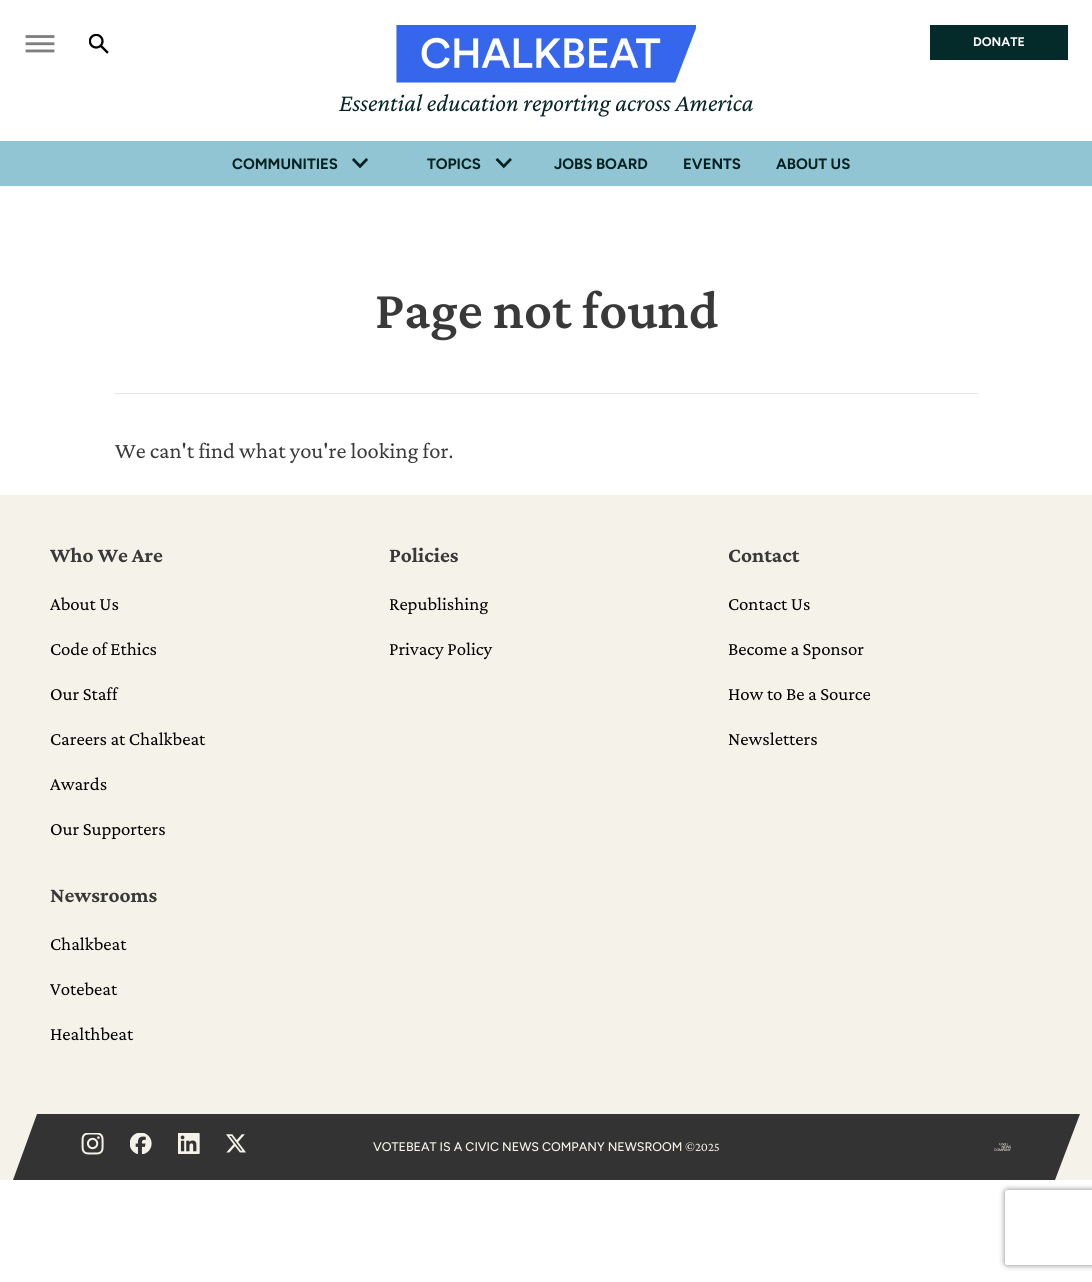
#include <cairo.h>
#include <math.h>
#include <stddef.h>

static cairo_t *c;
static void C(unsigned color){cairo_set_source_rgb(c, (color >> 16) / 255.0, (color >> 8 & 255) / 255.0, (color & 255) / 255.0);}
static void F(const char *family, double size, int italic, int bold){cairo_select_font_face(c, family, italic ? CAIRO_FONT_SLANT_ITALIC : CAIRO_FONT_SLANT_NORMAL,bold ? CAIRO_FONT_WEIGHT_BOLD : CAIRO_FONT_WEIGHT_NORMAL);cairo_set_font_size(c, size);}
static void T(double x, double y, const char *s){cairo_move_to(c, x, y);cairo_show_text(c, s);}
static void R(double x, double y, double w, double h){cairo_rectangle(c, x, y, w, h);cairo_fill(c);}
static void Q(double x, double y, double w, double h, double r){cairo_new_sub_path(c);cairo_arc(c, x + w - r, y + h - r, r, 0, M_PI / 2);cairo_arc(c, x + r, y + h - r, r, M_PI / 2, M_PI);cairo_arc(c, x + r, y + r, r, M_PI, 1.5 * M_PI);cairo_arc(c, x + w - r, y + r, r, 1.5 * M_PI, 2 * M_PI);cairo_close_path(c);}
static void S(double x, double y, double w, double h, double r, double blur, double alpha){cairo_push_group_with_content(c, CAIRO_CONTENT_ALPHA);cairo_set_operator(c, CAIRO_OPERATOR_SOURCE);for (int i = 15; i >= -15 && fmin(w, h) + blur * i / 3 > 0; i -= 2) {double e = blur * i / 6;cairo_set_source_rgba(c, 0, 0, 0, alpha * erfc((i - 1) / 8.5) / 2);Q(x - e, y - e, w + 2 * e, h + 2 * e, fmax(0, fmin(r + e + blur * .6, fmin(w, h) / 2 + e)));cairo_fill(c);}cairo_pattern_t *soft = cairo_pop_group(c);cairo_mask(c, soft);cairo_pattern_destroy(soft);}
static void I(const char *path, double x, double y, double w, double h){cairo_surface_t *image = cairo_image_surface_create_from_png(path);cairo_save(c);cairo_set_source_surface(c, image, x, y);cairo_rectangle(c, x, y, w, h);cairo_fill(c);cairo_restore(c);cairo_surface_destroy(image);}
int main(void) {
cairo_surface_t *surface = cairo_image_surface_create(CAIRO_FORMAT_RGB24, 1092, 1282);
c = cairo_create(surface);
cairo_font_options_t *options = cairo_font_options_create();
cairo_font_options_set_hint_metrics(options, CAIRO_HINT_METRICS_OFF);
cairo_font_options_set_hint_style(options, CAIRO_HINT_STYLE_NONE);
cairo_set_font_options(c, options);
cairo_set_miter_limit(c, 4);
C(0xffffff);
cairo_paint(c);
I("1.png",25,35,30,18);
I("2.png",89,34,20,20);
C(0x042b29);
R(930,25,138,35);
F("Figtree",12.5,0,1);
C(0xffffff);
T(973,46,"DONATE");
I("3.png",396,25,300,58);
F("Crimson Pro",25,1,0);
C(0x072625);
T(339,111,"Essential education reporting across America");
C(0x92c5d4);
R(0,141,1092,45);
F("Figtree",15,0,1);
C(0x012120);
T(232,169,"COMMUNITIES");
I("4.png",351,158,18,11);
T(427,169,"TOPICS");
I("5.png",495,158,17,11);
T(554,169,"JOBS BOARD");
T(683,169,"EVENTS");
T(776,169,"ABOUT US");
C(0xe7e7e8);
R(115,393,863,1);
F("Crimson Pro SemiBold",55,0,0);
C(0x393939);
T(375,328,"Page not found");
F("Crimson Pro",22.5,0,0);
T(115,458,"We can't find what you're looking for.");
C(0xf5f2e9);
R(0,495,1092,685);
F("Crimson Pro",21.25,0,1);
C(0x393939);
T(50,562,"Who We Are");
F("Crimson Pro",18.75,0,0);
C(0x000000);
T(50,610,"About Us");
T(50,655,"Code of Ethics");
T(50,700,"Our Staff");
T(50,745,"Careers at Chalkbeat");
T(50,790,"Awards");
T(50,835,"Our Supporters");
F("Crimson Pro",21.25,0,1);
C(0x393939);
T(389,562,"Policies");
F("Crimson Pro",18.75,0,0);
C(0x000000);
T(389,610,"Republishing");
T(389,655,"Privacy Policy");
F("Crimson Pro",21.25,0,1);
C(0x393939);
T(728,562,"Contact");
F("Crimson Pro",18.75,0,0);
C(0x000000);
T(728,610,"Contact Us");
T(728,655,"Become a Sponsor");
T(728,700,"How to Be a Source");
T(728,745,"Newsletters");
F("Crimson Pro",21.25,0,1);
C(0x393939);
T(50,902,"Newsrooms");
F("Crimson Pro",18.75,0,0);
C(0x000000);
T(50,950,"Chalkbeat");
T(50,995,"Votebeat");
T(50,1040,"Healthbeat");
C(0x333333);
cairo_new_path(c);
cairo_move_to(c,37,1114);
cairo_line_to(c,1080,1114);
cairo_line_to(c,1055,1180);
cairo_line_to(c,13,1180);
cairo_close_path(c);
cairo_fill(c);
I("6.png",81,1133,23,22);
I("7.png",130,1133,22,21);
I("8.png",178,1133,22,21);
I("9.png",226,1134,20,19);
F("Figtree Medium",12.5,0,0);
C(0xf5f2e9);
T(373,1151,"VOTEBEAT IS A CIVIC NEWS COMPANY NEWSROOM");
F("Crimson Pro",12.5,0,0);
T(685,1151,"©2025");
I("10.png",994,1143,17,8);
cairo_save(c);
cairo_set_fill_rule(c,CAIRO_FILL_RULE_EVEN_ODD);
cairo_new_path(c);
cairo_move_to(c,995,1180);
cairo_line_to(c,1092,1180);
cairo_line_to(c,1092,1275);
cairo_line_to(c,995,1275);
cairo_close_path(c);
cairo_move_to(c,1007.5,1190);
cairo_line_to(c,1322.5,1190);
cairo_curve_to(c,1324,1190,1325,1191,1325,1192.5);
cairo_line_to(c,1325,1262.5);
cairo_curve_to(c,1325,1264,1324,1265,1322.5,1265);
cairo_line_to(c,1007.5,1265);
cairo_curve_to(c,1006,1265,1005,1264,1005,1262.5);
cairo_line_to(c,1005,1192.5);
cairo_curve_to(c,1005,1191,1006,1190,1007.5,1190);
cairo_close_path(c);
cairo_clip(c);
C(0x808080);
S(1005,1190,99,75,2.5,3,1);
cairo_restore(c);
cairo_surface_write_to_png(surface, "o.png");
cairo_font_options_destroy(options);
cairo_destroy(c);
cairo_surface_destroy(surface);
return 0;
}
